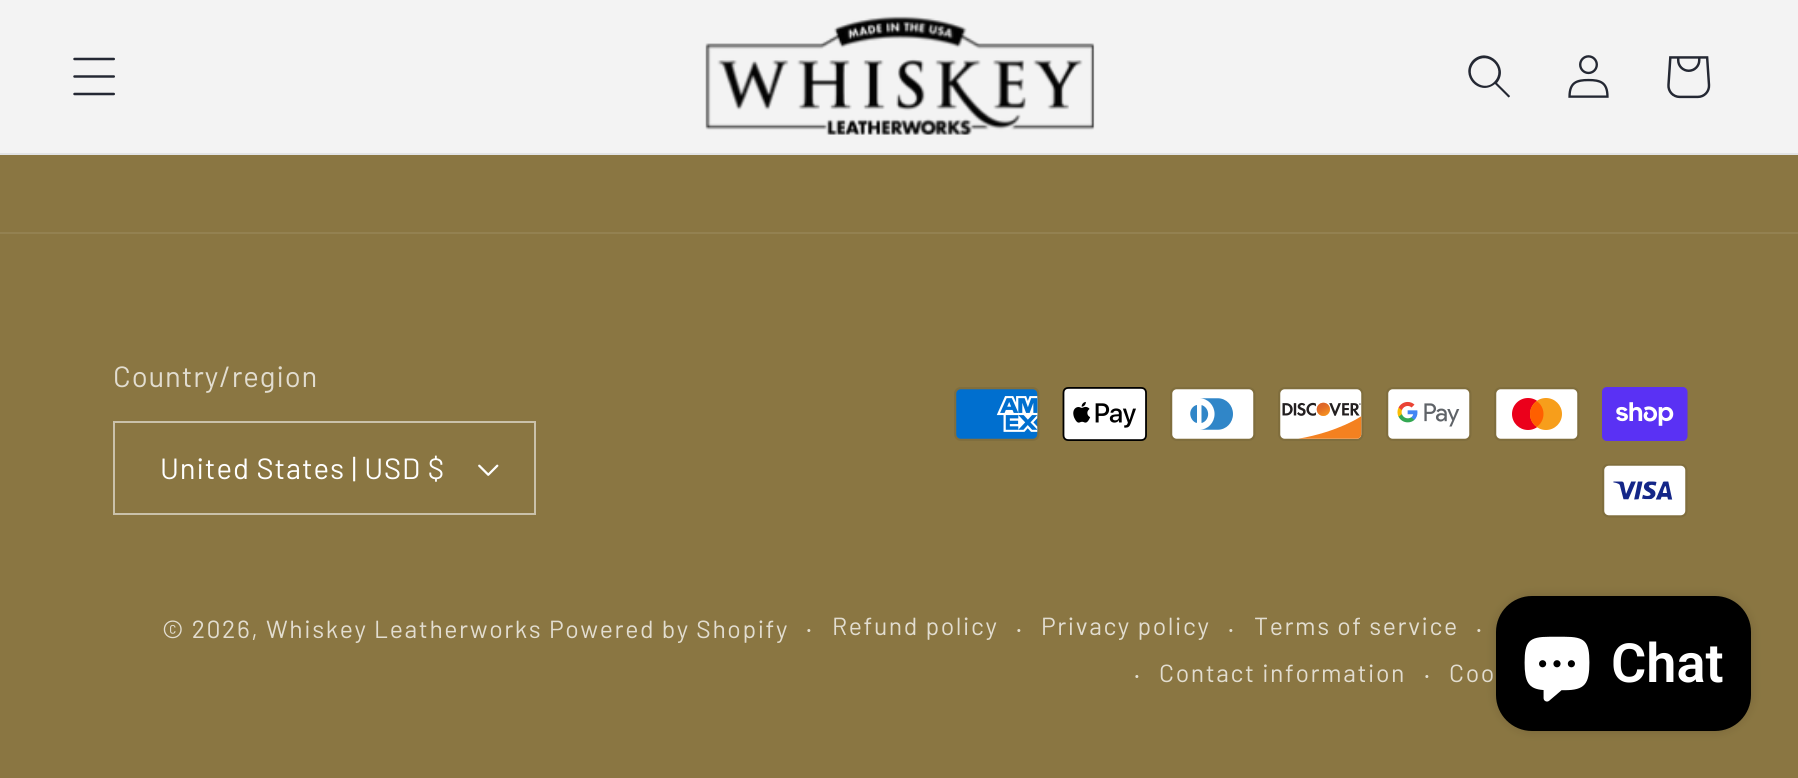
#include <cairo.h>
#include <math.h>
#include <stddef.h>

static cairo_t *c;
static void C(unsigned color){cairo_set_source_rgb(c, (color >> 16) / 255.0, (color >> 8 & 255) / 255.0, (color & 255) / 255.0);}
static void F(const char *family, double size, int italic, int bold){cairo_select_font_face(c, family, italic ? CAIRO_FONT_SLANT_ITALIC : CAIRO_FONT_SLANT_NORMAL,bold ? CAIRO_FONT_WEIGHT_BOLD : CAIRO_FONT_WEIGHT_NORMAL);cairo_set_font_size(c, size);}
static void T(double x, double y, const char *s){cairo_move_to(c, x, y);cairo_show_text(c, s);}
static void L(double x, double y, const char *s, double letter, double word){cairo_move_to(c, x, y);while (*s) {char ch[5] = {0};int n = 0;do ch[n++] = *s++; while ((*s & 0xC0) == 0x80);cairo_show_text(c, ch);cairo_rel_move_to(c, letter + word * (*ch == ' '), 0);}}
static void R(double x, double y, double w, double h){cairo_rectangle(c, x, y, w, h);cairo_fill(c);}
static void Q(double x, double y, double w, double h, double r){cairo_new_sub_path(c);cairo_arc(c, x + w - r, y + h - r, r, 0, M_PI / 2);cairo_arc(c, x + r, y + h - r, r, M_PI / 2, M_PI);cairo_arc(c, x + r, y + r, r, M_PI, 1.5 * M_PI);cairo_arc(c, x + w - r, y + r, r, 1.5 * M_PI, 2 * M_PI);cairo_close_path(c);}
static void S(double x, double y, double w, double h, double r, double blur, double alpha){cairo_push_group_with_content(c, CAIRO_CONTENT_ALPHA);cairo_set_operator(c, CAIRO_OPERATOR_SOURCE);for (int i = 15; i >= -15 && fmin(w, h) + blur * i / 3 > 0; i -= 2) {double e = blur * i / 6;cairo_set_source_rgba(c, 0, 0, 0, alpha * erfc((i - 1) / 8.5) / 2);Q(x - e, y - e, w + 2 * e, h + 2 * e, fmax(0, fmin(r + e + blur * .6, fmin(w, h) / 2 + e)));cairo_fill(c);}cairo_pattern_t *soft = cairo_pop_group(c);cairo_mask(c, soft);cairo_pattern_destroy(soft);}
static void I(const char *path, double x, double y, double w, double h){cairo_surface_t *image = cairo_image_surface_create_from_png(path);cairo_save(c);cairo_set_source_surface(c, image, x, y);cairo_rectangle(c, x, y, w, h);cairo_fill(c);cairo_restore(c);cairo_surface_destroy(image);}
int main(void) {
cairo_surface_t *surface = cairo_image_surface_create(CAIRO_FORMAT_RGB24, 1798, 778);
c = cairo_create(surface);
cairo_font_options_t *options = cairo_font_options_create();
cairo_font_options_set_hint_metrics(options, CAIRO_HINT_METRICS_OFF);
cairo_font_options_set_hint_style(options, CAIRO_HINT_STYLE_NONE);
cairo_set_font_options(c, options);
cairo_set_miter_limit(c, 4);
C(0x8a7642);
cairo_paint(c);
C(0xf3f3f3);
R(0,0,1798,153);
C(0xe2e3e4);
R(0,153,1798,2);
I("1.png",73,57,42,39);
I("2.png",705,16,390,119);
C(0x242833);
cairo_set_fill_rule(c,CAIRO_FILL_RULE_EVEN_ODD);
cairo_new_path(c);
cairo_move_to(c,1494,82);
cairo_curve_to(c,1482,94,1462,75,1475,62);
cairo_curve_to(c,1488,50,1507,69,1494,82);
cairo_move_to(c,1495,84);
cairo_curve_to(c,1479,97,1459,75,1473,60);
cairo_curve_to(c,1488,46,1510,67,1497,83);
cairo_line_to(c,1510,96);
cairo_curve_to(c,1510,97,1508,98,1508,97);
cairo_close_path(c);
cairo_fill(c);
I("3.png",1568,55,41,43);
I("4.png",1667,56,44,43);
C(0x938151);
R(0,232,1798,2);
F("Barlow",29.25,0,0);
C(0xe2ddd0);
L(113,387,"Country/region",.9,0);
I("5.png",478,464,21,12);
cairo_rectangle(c,114,422,421,92);
C(0xcac1aa);
cairo_stroke(c);
C(0xffffff);
L(160,479,"United States | USD $",.9,0);
I("6.png",954,387,86,54);
I("7.png",1062,387,85,54);
I("8.png",1170,387,86,54);
I("9.png",1278,387,86,54);
I("10.png",1386,387,86,54);
I("11.png",1494,387,86,54);
I("12.png",1602,387,86,54);
I("13.png",1602,464,86,54);
F("Barlow",24.75,0,0);
C(0xe2ddd0);
L(162,638,"© 2026, Whiskey Leatherworks",1.6,0);
L(549,638,"Powered by Shopify",1.6,0);
F("Barlow",27,0,0);
L(806,638,"·",1.6,0);
F("Barlow",24.75,0,0);
L(832,635,"Refund policy",1.6,0);
F("Barlow",27,0,0);
L(1016,638,"·",1.6,0);
F("Barlow",24.75,0,0);
L(1041,635,"Privacy policy",1.6,0);
F("Barlow",27,0,0);
L(1228,638,"·",1.6,0);
F("Barlow",24.75,0,0);
L(1254,635,"Terms of service",1.6,0);
F("Barlow",27,0,0);
L(1476,638,"·",1.6,0);
L(1134,684,"·",1.6,0);
F("Barlow",24.75,0,0);
L(1159,682,"Contact information",1.6,0);
F("Barlow",27,0,0);
L(1424,684,"·",1.6,0);
F("Barlow",24.75,0,0);
L(1449,682,"Coo",1.6,0);
C(0x000000);
S(1496,596,255,135,36,5.5,.15);
C(0x000000);
Q(1496,596,255,135,36);
cairo_fill(c);
I("14.png",1524,636,66,66);
F("Roboto SemiBold",54,0,0);
C(0xffffff);
T(1611,682,"Chat");
cairo_surface_write_to_png(surface, "o.png");
cairo_font_options_destroy(options);
cairo_destroy(c);
cairo_surface_destroy(surface);
return 0;
}
